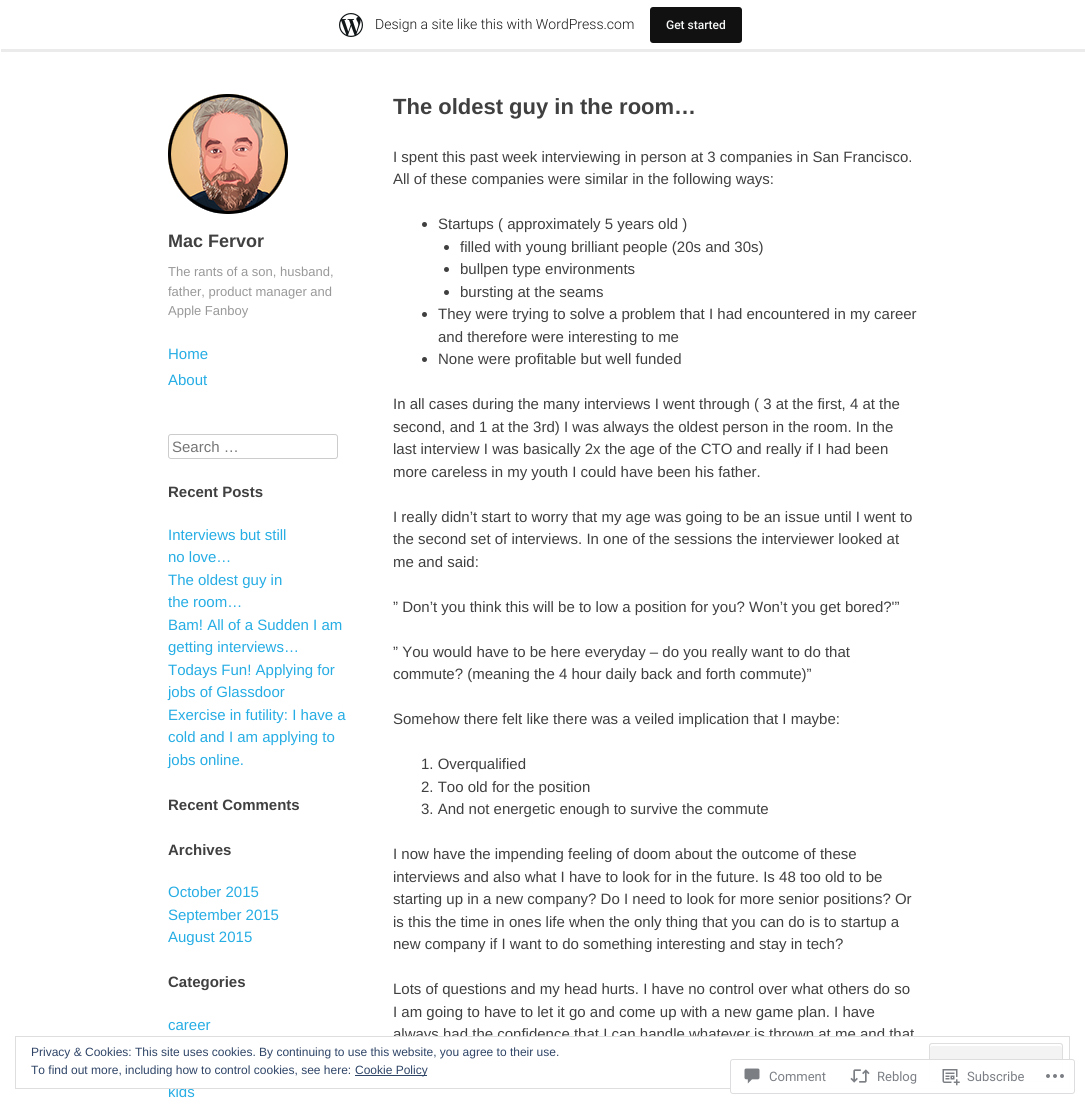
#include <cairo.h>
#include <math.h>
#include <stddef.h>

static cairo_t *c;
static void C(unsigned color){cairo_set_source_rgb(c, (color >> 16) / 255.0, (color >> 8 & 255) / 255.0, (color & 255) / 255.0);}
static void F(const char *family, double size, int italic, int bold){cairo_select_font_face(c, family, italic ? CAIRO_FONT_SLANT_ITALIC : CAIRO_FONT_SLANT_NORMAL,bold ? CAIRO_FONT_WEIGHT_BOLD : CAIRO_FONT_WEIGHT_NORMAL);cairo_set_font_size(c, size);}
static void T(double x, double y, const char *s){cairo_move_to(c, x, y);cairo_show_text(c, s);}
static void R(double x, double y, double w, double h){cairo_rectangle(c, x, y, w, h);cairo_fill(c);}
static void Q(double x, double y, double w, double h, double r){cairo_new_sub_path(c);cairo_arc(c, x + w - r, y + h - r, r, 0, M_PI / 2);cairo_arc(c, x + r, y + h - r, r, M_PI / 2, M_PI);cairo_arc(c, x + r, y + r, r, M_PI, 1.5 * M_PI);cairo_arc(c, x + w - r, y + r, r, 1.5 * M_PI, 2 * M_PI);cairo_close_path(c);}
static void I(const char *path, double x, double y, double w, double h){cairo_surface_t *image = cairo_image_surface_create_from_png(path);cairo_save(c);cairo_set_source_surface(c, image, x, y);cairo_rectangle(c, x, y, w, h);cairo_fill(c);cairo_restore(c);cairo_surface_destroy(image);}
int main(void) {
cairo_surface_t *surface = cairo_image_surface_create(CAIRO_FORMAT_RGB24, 1085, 1104);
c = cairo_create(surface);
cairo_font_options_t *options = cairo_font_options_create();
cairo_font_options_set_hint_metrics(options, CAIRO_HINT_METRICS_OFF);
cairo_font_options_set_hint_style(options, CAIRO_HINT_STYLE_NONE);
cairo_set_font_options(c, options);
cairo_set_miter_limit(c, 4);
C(0xffffff);
cairo_paint(c);
cairo_set_source_rgba(c,0,0,0,0.08);
cairo_new_path(c);
cairo_move_to(c,1,49);
cairo_line_to(c,1,52);
cairo_line_to(c,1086,52);
cairo_line_to(c,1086,3);
cairo_line_to(c,1085,3);
cairo_line_to(c,1085,49);
cairo_close_path(c);
cairo_fill(c);
I("1.png",339,13,24,24);
F("Roboto Light",14,0,0);
C(0x171717);
T(375,29,"Design a site like this with WordPress.com");
C(0x111111);
Q(650,7,92,36,3);
cairo_fill(c);
F("Roboto Medium",12,0,0);
C(0xf6f7f7);
T(666,29,"Get started");
Q(168.5,434.5,169,24,2.5);
C(0xcccccc);
cairo_set_line_width(c,1);
cairo_stroke(c);
F("Liberation Sans",15,0,0);
C(0x757575);
T(172,452,"Search …");
F("Liberation Sans",15,0,1);
C(0x404040);
T(168,497,"Recent Posts");
F("Liberation Sans",15,0,0);
C(0x26ade4);
T(168,540,"Interviews but still");
T(168,562,"no love…");
T(168,585,"The oldest guy in");
T(168,607,"the room…");
T(168,630,"Bam! All of a Sudden I am");
T(168,652,"getting interviews…");
T(168,675,"Todays Fun! Applying for");
T(168,697,"jobs of Glassdoor");
T(168,720,"Exercise in futility: I have a");
T(168,742,"cold and I am applying to");
T(168,765,"jobs online.");
F("Liberation Sans",15,0,1);
C(0x404040);
T(168,810,"Recent Comments");
T(168,855,"Archives");
F("Liberation Sans",15,0,0);
C(0x26ade4);
T(168,897,"October 2015");
T(168,920,"September 2015");
T(168,942,"August 2015");
F("Liberation Sans",15,0,1);
C(0x404040);
T(168,987,"Categories");
F("Liberation Sans",15,0,0);
C(0x26ade4);
T(168,1030,"career");
T(168,1097,"kids");
F("Liberation Sans",22,0,1);
C(0x404040);
T(393,114,"The oldest guy in the room…");
F("Liberation Sans",15,0,0);
T(393,162,"I spent this past week interviewing in person at 3 companies in San Francisco.");
T(393,184,"All of these companies were similar in the following ways:");
cairo_new_path(c);
cairo_arc(c,424.5,224.5,2.5,0,2 * M_PI);
cairo_fill(c);
T(438,229,"Startups ( approximately 5 years old )");
cairo_new_path(c);
cairo_arc(c,446.5,247.5,2.5,0,2 * M_PI);
cairo_fill(c);
T(460,252,"filled with young brilliant people (20s and 30s)");
cairo_new_path(c);
cairo_arc(c,446.5,269.5,2.5,0,2 * M_PI);
cairo_fill(c);
T(460,274,"bullpen type environments");
cairo_new_path(c);
cairo_arc(c,446.5,292.5,2.5,0,2 * M_PI);
cairo_fill(c);
T(460,297,"bursting at the seams");
cairo_new_path(c);
cairo_arc(c,424.5,314.5,2.5,0,2 * M_PI);
cairo_fill(c);
T(438,319,"They were trying to solve a problem that I had encountered in my career");
T(438,342,"and therefore were interesting to me");
cairo_new_path(c);
cairo_arc(c,424.5,359.5,2.5,0,2 * M_PI);
cairo_fill(c);
T(438,364,"None were profitable but well funded");
T(393,409,"In all cases during the many interviews I went through ( 3 at the first, 4 at the");
T(393,432,"second, and 1 at the 3rd) I was always the oldest person in the room. In the");
T(393,454,"last interview I was basically 2x the age of the CTO and really if I had been");
T(393,477,"more careless in my youth I could have been his father.");
T(393,522,"I really didn’t start to worry that my age was going to be an issue until I went to");
T(393,544,"the second set of interviews. In one of the sessions the interviewer looked at");
T(393,567,"me and said:");
T(393,612,"” Don’t you think this will be to low a position for you? Won’t you get bored?'”");
T(393,657,"” You would have to be here everyday – do you really want to do that");
T(393,679,"commute? (meaning the 4 hour daily back and forth commute)”");
T(393,724,"Somehow there felt like there was a veiled implication that I maybe:");
T(421,769,"1. Overqualified");
T(421,792,"2. Too old for the position");
T(421,814,"3. And not energetic enough to survive the commute");
T(393,859,"I now have the impending feeling of doom about the outcome of these");
T(393,882,"interviews and also what I have to look for in the future. Is 48 too old to be");
T(393,904,"starting up in a new company? Do I need to look for more senior positions? Or");
T(393,927,"is this the time in ones life when the only thing that you can do is to startup a");
T(393,949,"new company if I want to do something interesting and stay in tech?");
T(393,994,"Lots of questions and my head hurts. I have no control over what others do so");
T(393,1017,"I am going to have to let it go and come up with a new game plan. I have");
T(393,1039,"always had the confidence that I can handle whatever is thrown at me and that");
I("2.png",168,94,120,120);
F("Liberation Sans",18,0,1);
T(168,247,"Mac Fervor");
F("Liberation Sans",13,0,0);
C(0x999999);
T(168,276,"The rants of a son, husband,");
T(168,296,"father, product manager and");
T(168,315,"Apple Fanboy");
F("Liberation Sans",15,0,0);
C(0x26ade4);
T(168,359,"Home");
T(168,385,"About");
C(0xffffff);
R(168,1037,746,51);
cairo_rectangle(c,15.5,1036.5,1054,52);
C(0xdedede);
cairo_stroke(c);
F("Liberation Sans",12,0,0);
C(0x2e4467);
T(31,1056,"Privacy & Cookies: This site uses cookies. By continuing to use this website, you agree to their use.");
C(0xf3f3f3);
Q(929,1043,134,39,3);
cairo_fill(c);
C(0xffffff);
cairo_new_path(c);
cairo_move_to(c,932,1046);
cairo_line_to(c,1060,1046);
cairo_curve_to(c,1061,1046,1062,1047,1062,1048);
cairo_line_to(c,1062,1046);
cairo_curve_to(c,1062,1045,1061,1044,1060,1044);
cairo_line_to(c,932,1044);
cairo_curve_to(c,931,1044,930,1045,930,1046);
cairo_line_to(c,930,1048);
cairo_curve_to(c,930,1047,931,1046,932,1046);
cairo_close_path(c);
cairo_fill(c);
Q(929.5,1043.5,133,38,2.5);
C(0xdedede);
cairo_stroke(c);
C(0x2e4467);
T(31,1074,"To find out more, including how to control cookies, see here:");
R(355,1075,72,1);
T(355,1074,"Cookie Policy");
cairo_set_source_rgba(c,1,1,1,0.98);
Q(730,1059,345,35,3);
cairo_fill(c);
Q(730.5,1059.5,344,34,2.5);
cairo_set_source_rgba(c,0.863,0.863,0.871,0.98);
cairo_stroke(c);
I("3.png",744,1068,16,16);
F("Roboto",13,0,0);
C(0x7b7f85);
T(769,1081,"Comment");
I("4.png",850,1069,20,14);
T(877,1081,"Reblog");
I("5.png",942,1069,18,17);
T(967,1081,"Subscribe");
I("6.png",1046,1074,18,4);
cairo_surface_write_to_png(surface, "o.png");
cairo_font_options_destroy(options);
cairo_destroy(c);
cairo_surface_destroy(surface);
return 0;
}
